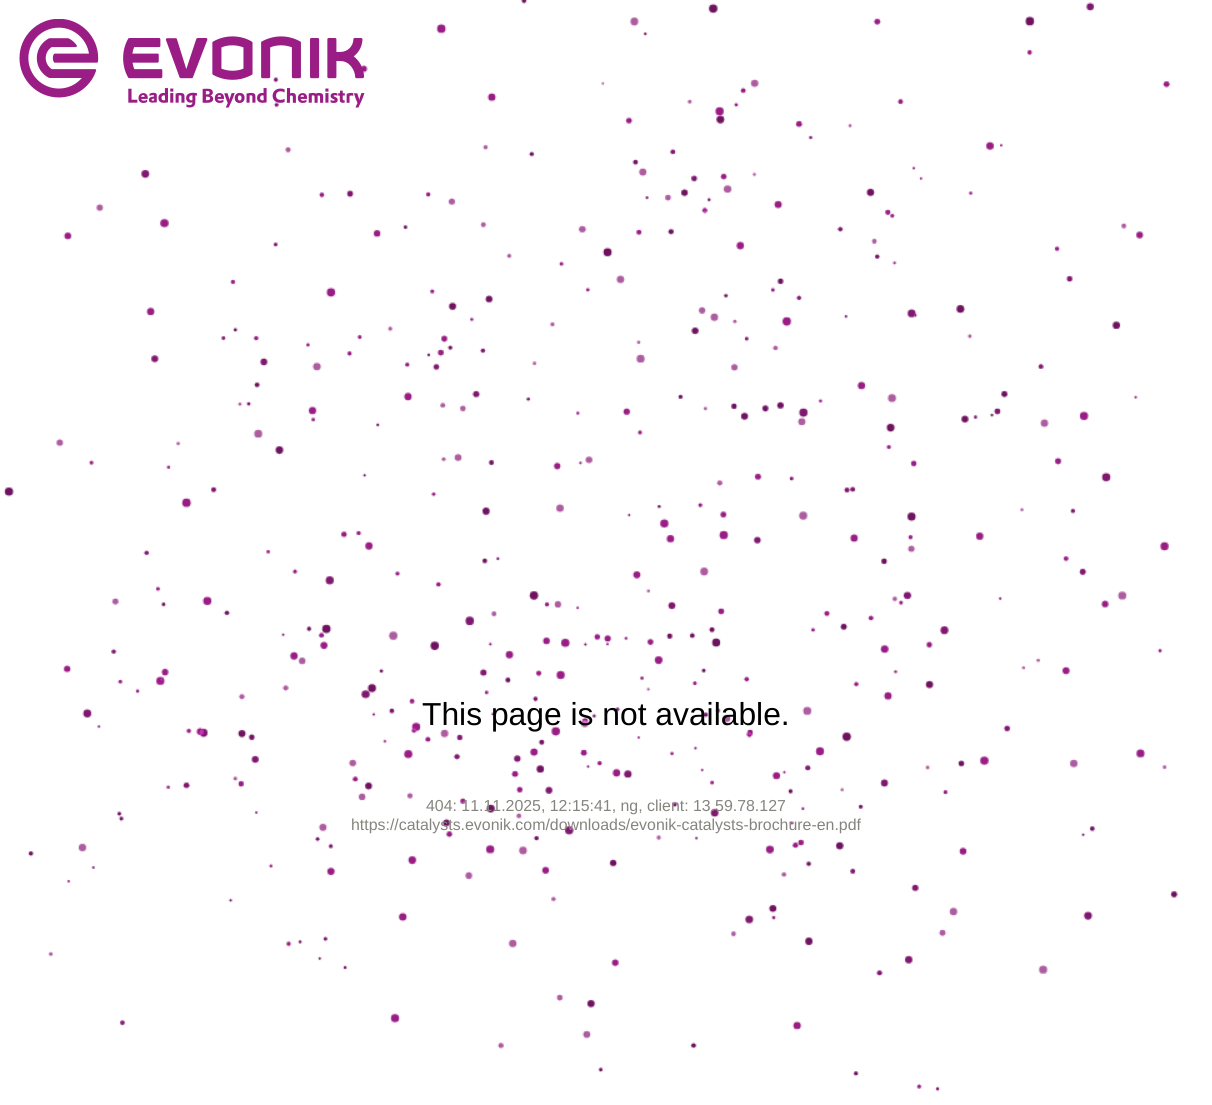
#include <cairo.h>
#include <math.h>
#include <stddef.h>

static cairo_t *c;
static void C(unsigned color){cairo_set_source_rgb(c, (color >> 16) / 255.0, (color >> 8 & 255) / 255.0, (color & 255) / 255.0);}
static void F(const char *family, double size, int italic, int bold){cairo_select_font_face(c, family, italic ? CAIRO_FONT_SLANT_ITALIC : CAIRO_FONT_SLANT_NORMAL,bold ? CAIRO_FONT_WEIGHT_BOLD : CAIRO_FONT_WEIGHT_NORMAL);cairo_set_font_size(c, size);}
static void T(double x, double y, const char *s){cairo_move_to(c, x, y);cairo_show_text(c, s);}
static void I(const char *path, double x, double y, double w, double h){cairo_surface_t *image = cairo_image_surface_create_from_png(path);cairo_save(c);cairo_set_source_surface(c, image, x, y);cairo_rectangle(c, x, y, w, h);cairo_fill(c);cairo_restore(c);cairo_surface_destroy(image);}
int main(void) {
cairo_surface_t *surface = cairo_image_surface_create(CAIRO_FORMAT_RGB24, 1212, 1105);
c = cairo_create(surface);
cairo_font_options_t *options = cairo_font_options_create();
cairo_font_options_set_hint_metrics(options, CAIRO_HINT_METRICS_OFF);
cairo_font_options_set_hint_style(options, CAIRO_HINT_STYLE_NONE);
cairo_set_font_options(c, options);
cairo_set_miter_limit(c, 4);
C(0xffffff);
cairo_paint(c);
I("1.png",3,0,1175,1092);
I("2.png",19,19,346,89);
F("Liberation Sans",31.8,0,0);
C(0x000000);
T(422,725,"This page is not available.");
F("Liberation Sans",15.9,0,0);
C(0x85847e);
T(426,811,"404: 11.11.2025, 12:15:41, ng, client: 13.59.78.127");
T(351,830,"https://catalysts.evonik.com/downloads/evonik-catalysts-brochure-en.pdf");
cairo_surface_write_to_png(surface, "o.png");
cairo_font_options_destroy(options);
cairo_destroy(c);
cairo_surface_destroy(surface);
return 0;
}
